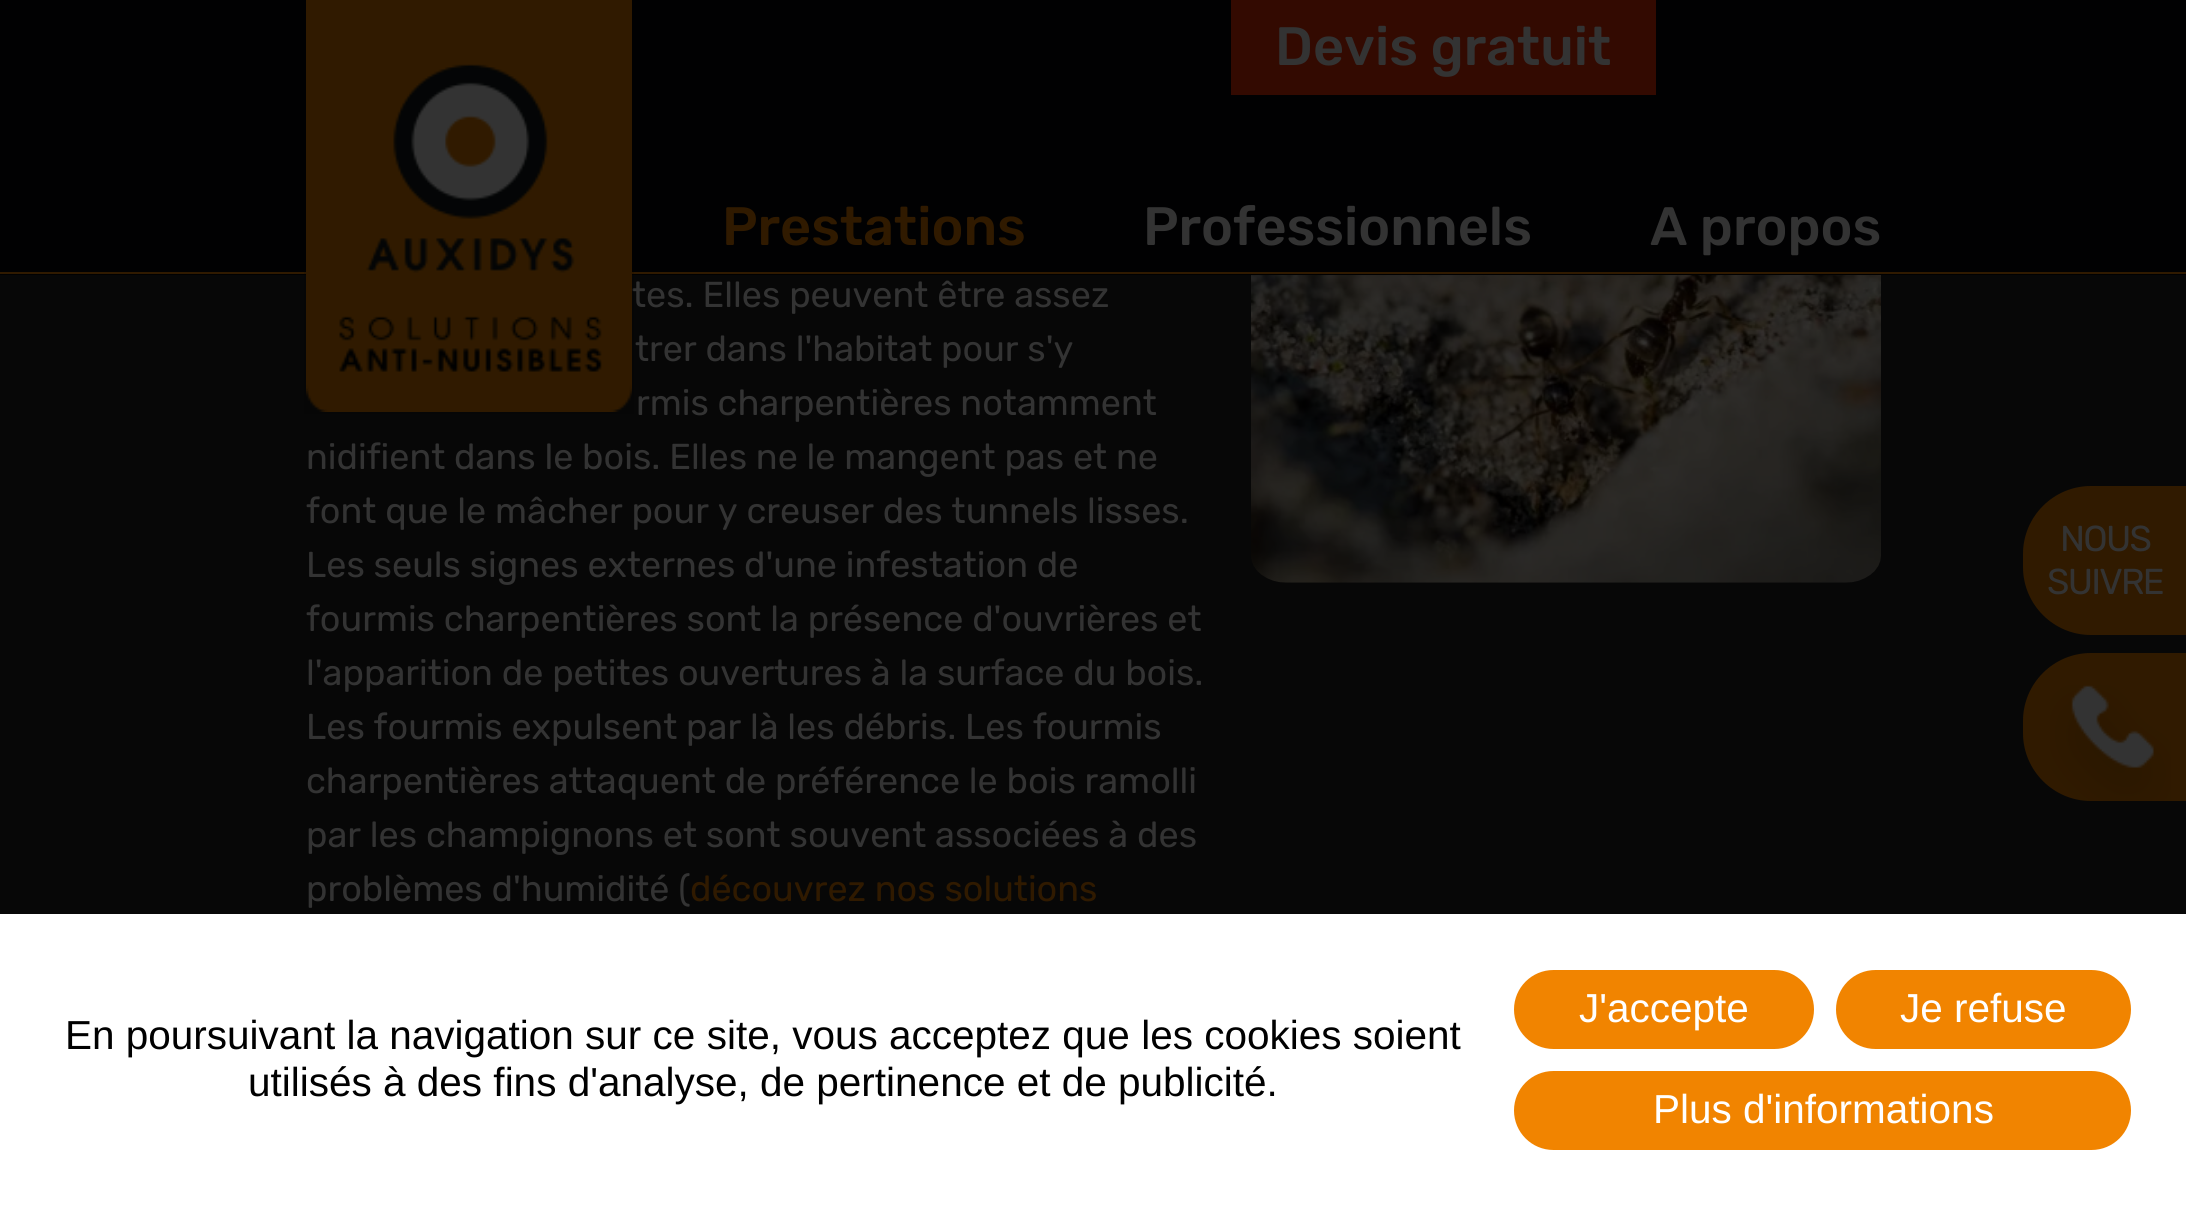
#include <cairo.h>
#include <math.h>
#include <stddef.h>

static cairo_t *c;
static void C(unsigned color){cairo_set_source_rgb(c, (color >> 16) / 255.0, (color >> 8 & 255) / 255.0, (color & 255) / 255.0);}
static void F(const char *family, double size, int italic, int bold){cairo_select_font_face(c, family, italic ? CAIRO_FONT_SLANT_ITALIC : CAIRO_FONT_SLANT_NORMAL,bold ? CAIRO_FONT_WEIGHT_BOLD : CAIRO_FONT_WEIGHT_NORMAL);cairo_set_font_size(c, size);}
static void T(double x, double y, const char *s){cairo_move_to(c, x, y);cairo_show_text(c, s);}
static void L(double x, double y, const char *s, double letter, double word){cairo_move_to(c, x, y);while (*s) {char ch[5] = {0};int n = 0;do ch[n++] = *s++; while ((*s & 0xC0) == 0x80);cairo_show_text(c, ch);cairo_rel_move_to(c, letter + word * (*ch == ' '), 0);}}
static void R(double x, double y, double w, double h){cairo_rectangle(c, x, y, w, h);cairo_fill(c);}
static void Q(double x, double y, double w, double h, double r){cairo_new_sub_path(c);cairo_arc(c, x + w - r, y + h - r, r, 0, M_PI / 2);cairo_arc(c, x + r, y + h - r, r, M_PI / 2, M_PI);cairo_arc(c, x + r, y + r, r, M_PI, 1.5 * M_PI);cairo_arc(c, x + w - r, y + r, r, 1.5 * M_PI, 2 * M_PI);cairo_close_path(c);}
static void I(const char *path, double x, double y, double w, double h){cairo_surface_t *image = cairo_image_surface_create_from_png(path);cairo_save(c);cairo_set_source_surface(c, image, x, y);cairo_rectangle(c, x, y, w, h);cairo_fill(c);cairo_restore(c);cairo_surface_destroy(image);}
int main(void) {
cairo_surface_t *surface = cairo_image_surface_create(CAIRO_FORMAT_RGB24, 2186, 1206);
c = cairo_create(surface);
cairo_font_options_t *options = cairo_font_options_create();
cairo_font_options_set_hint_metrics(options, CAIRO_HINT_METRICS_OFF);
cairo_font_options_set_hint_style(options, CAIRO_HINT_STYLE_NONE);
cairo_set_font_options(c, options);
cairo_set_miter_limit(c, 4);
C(0x070707);
cairo_paint(c);
C(0x010102);
R(0,0,2186,275);
C(0x301a00);
R(0,272,2186,2);
F("Rubik Light",36,0,0);
C(0x333333);
T(632,307,"tes. Elles peuvent être assez");
I("1.png",304,0,330,414);
C(0x330a01);
R(1231,0,425,95);
F("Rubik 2 Light",54,0,0);
C(0x333333);
T(1275,65,"Devis gratuit");
C(0x301a00);
T(722,245,"Prestations");
C(0x333333);
T(1143,245,"Professionnels");
T(1650,245,"A propos");
C(0x301a00);
cairo_new_path(c);
cairo_move_to(c,2091,486);
cairo_line_to(c,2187,486);
cairo_line_to(c,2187,635);
cairo_line_to(c,2091,635);
cairo_curve_to(c,2053.5,635,2023,604.5,2023,567);
cairo_line_to(c,2023,554);
cairo_curve_to(c,2023,516.5,2053.5,486,2091,486);
cairo_close_path(c);
cairo_fill(c);
F("Rubik Light",36,0,0);
C(0x333333);
L(2060,551,"NOUS",-1.75,0);
L(2047,594,"SUIVRE",-1.75,0);
C(0x301a00);
cairo_new_path(c);
cairo_move_to(c,2091,653);
cairo_line_to(c,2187,653);
cairo_line_to(c,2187,801);
cairo_line_to(c,2091,801);
cairo_curve_to(c,2053.5,801,2023,770.5,2023,733);
cairo_line_to(c,2023,721);
cairo_curve_to(c,2023,683.5,2053.5,653,2091,653);
cairo_close_path(c);
cairo_fill(c);
I("2.png",2050,685,121,116);
C(0x333333);
T(635,361,"trer dans l'habitat pour s'y");
T(636,415,"rmis charpentières notamment");
T(306,469,"nidifient dans le bois. Elles ne le mangent pas et ne");
T(306,523,"font que le mâcher pour y creuser des tunnels lisses.");
T(306,577,"Les seuls signes externes d'une infestation de");
T(306,631,"fourmis charpentières sont la présence d'ouvrières et");
T(306,685,"l'apparition de petites ouvertures à la surface du bois.");
T(306,739,"Les fourmis expulsent par là les débris. Les fourmis");
T(306,793,"charpentières attaquent de préférence le bois ramolli");
T(306,847,"par les champignons et sont souvent associées à des");
T(306,901,"problèmes d'humidité (");
C(0x301a00);
T(690,901,"découvrez nos solutions");
I("3.png",1251,275,630,308);
C(0xffffff);
R(0,914,2186,292);
F("Liberation Sans",40.5,0,0);
C(0x000000);
T(65,1049,"En poursuivant la navigation sur ce site, vous acceptez que les cookies soient");
T(248,1096,"utilisés à des fins d'analyse, de pertinence et de publicité.");
C(0xf18400);
Q(1515,971,298,77,38.5);
cairo_fill_preserve(c);
cairo_stroke(c);
C(0xffffff);
T(1579,1022,"J'accepte");
C(0xf18400);
Q(1837,971,293,77,38.5);
cairo_fill_preserve(c);
cairo_stroke(c);
C(0xffffff);
T(1900,1022,"Je refuse");
C(0xf18400);
Q(1515,1072,615,77,38.5);
cairo_fill_preserve(c);
cairo_stroke(c);
C(0xffffff);
T(1653,1123,"Plus d'informations");
cairo_surface_write_to_png(surface, "o.png");
cairo_font_options_destroy(options);
cairo_destroy(c);
cairo_surface_destroy(surface);
return 0;
}
